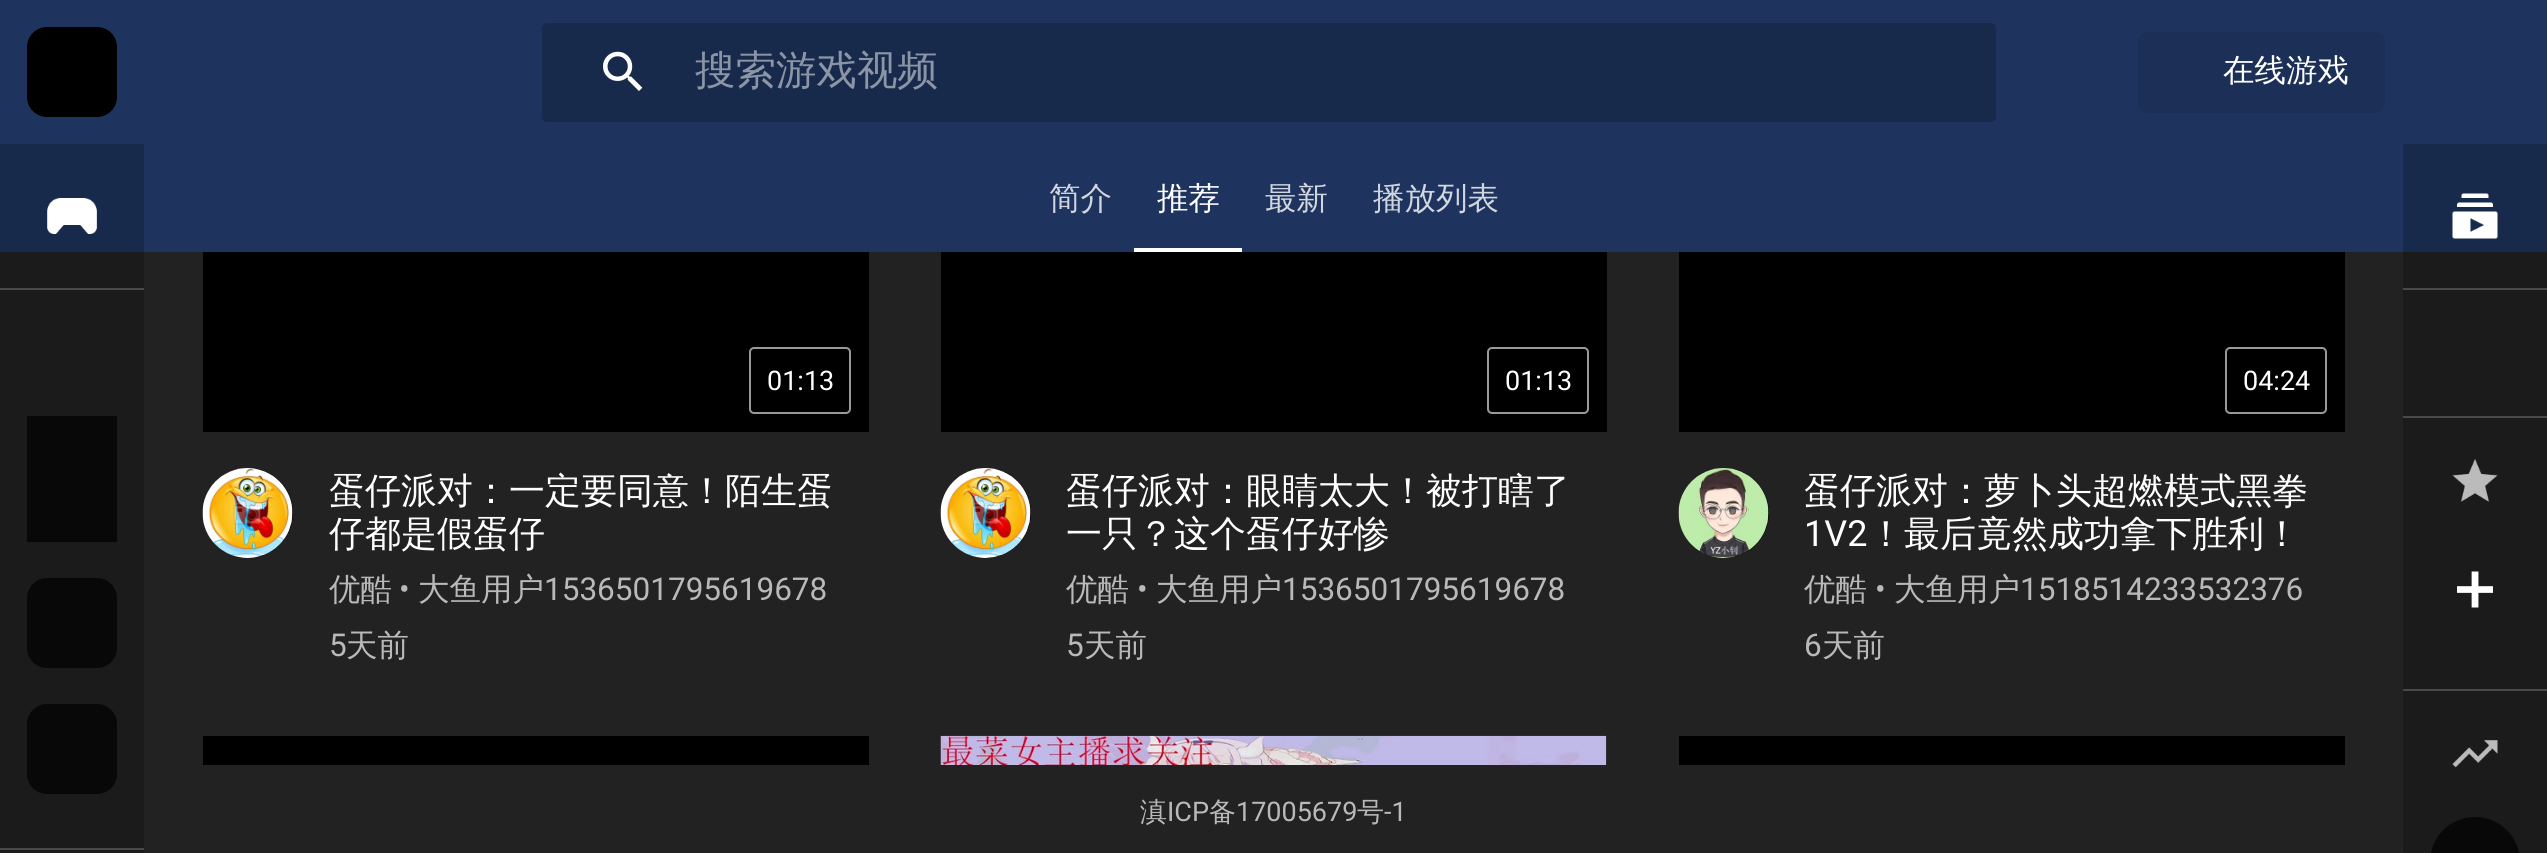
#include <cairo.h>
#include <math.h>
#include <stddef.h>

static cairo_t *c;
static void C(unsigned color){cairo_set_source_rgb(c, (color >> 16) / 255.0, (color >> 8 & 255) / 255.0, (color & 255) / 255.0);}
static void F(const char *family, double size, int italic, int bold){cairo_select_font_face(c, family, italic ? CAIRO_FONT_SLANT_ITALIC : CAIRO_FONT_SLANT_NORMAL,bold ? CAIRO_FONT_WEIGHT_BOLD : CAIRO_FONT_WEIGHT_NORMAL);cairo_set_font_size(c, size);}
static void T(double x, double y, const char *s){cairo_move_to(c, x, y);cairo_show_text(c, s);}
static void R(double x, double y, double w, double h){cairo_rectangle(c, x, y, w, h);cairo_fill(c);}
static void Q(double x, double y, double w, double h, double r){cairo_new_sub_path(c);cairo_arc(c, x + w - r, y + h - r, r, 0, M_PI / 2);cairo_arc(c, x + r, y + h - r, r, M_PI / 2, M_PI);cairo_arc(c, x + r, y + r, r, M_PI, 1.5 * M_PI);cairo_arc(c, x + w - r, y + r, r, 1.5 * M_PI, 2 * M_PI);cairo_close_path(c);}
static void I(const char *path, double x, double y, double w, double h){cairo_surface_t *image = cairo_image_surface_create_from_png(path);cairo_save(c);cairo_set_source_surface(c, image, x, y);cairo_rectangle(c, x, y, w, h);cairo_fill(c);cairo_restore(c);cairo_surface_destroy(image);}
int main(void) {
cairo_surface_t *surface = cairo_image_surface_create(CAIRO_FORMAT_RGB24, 2547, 853);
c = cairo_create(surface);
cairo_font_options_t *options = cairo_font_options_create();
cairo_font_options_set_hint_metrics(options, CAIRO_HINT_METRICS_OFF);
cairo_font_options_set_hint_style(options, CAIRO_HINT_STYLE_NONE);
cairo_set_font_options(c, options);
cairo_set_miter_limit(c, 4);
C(0x222222);
cairo_paint(c);
C(0x1b1b1b);
R(2403,252,144,601);
R(0,252,144,601);
C(0x1e345f);
R(0,0,2547,144);
C(0x000000);
Q(27,27,90,90,20);
cairo_fill(c);
C(0x182a4c);
Q(542,23,1454,99,5);
cairo_fill(c);
I("1.png",603,51,40,40);
F("WenQuanYi Zen Hei Medium",40.5,0,0);
C(0x8c95a6);
T(695,84,"搜索游戏视频");
C(0x1c3057);
Q(2138,32,247,81,9);
cairo_fill(c);
F("WenQuanYi Zen Hei Medium",31.5,0,0);
C(0xffffff);
T(2223,81,"在线游戏");
C(0x182a4c);
R(0,144,144,108);
I("2.png",47,198,50,36);
C(0x494949);
R(0,288,144,2);
C(0x080808);
R(27,416,90,126);
Q(27,578,90,90,20);
cairo_fill(c);
Q(27,704,90,90,20);
cairo_fill(c);
C(0x494949);
R(0,848,144,2);
C(0x000000);
R(203,252,666,180);
Q(750,348,100,65,4);
C(0x999999);
cairo_stroke(c);
F("Roboto",27,0,0);
C(0xffffff);
T(767,390,"01:13");
C(0x000000);
cairo_new_path(c);
cairo_arc(c,248,513,45,0,2 * M_PI);
cairo_fill(c);
I("3.png",202,468,91,90);
F("WenQuanYi Zen Hei Medium",36,0,0);
C(0xffffff);
T(329,503,"蛋仔派对：一定要同意！陌生蛋");
T(329,546,"仔都是假蛋仔");
F("WenQuanYi Zen Hei Medium",31.5,0,0);
C(0xb9b9b9);
T(329,600,"优酷");
F("Roboto",31.5,0,0);
T(399,600,"•");
F("WenQuanYi Zen Hei Medium",31.5,0,0);
T(418,600,"大鱼用户");
F("Roboto",31.5,0,0);
T(544,600,"1536501795619678");
T(329,656,"5");
F("WenQuanYi Zen Hei Medium",31.5,0,0);
T(346,656,"天前");
C(0x000000);
R(941,252,666,180);
Q(1488,348,100,65,4);
C(0x999999);
cairo_stroke(c);
F("Roboto",27,0,0);
C(0xffffff);
T(1505,390,"01:13");
C(0x000000);
cairo_new_path(c);
cairo_arc(c,986,513,45,0,2 * M_PI);
cairo_fill(c);
I("4.png",940,468,91,90);
F("WenQuanYi Zen Hei Medium",36,0,0);
C(0xffffff);
T(1066,503,"蛋仔派对：眼睛太大！被打瞎了");
T(1066,546,"一只？这个蛋仔好惨");
F("WenQuanYi Zen Hei Medium",31.5,0,0);
C(0xb9b9b9);
T(1066,600,"优酷");
F("Roboto",31.5,0,0);
T(1137,600,"•");
F("WenQuanYi Zen Hei Medium",31.5,0,0);
T(1156,600,"大鱼用户");
F("Roboto",31.5,0,0);
T(1282,600,"1536501795619678");
T(1066,656,"5");
F("WenQuanYi Zen Hei Medium",31.5,0,0);
T(1084,656,"天前");
C(0x000000);
R(1679,252,666,180);
Q(2226,348,100,65,4);
C(0x999999);
cairo_stroke(c);
F("Roboto",27,0,0);
C(0xffffff);
T(2243,390,"04:24");
C(0x000000);
cairo_new_path(c);
cairo_arc(c,1724,513,45,0,2 * M_PI);
cairo_fill(c);
I("5.png",1678,468,91,90);
F("WenQuanYi Zen Hei Medium",36,0,0);
C(0xffffff);
T(1804,503,"蛋仔派对：萝卜头超燃模式黑拳");
F("Roboto",36,0,0);
T(1804,546,"1V2");
F("WenQuanYi Zen Hei Medium",36,0,0);
T(1868,546,"！最后竟然成功拿下胜利！");
F("WenQuanYi Zen Hei Medium",31.5,0,0);
C(0xb9b9b9);
T(1804,600,"优酷");
F("Roboto",31.5,0,0);
T(1875,600,"•");
F("WenQuanYi Zen Hei Medium",31.5,0,0);
T(1894,600,"大鱼用户");
F("Roboto",31.5,0,0);
T(2020,600,"1518514233532376");
T(1804,656,"6");
F("WenQuanYi Zen Hei Medium",31.5,0,0);
T(1822,656,"天前");
C(0x000000);
R(203,736,666,29);
R(1606,736,1,29);
I("6.png",940,735,667,30);
R(1679,736,666,29);
C(0x182a4c);
R(2403,144,144,108);
I("7.png",2452,193,46,46);
C(0x494949);
R(2403,288,144,2);
R(2403,416,144,2);
I("8.png",2452,459,46,43);
I("9.png",2457,571,36,37);
R(2403,689,144,2);
I("10.png",2452,740,46,28);
C(0x080808);
cairo_new_path(c);
cairo_move_to(c,2475,817);
cairo_curve_to(c,2500,817,2520,837,2520,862);
cairo_line_to(c,2520,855);
cairo_line_to(c,2430,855);
cairo_line_to(c,2430,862);
cairo_curve_to(c,2430,837,2450,817,2475,817);
cairo_close_path(c);
cairo_fill(c);
F("WenQuanYi Zen Hei Medium",27,0,0);
C(0xb9b9b9);
T(1140,821,"滇");
F("Roboto",27,0,0);
T(1167,821,"ICP");
F("WenQuanYi Zen Hei Medium",27,0,0);
T(1209,821,"备");
F("Roboto",27,0,0);
T(1236,821,"17005679");
F("WenQuanYi Zen Hei Medium",27,0,0);
T(1357,821,"号");
F("Roboto",27,0,0);
T(1384,821,"-1");
C(0x1e345f);
R(144,144,2259,108);
F("WenQuanYi Zen Hei Medium",31.5,0,0);
C(0xd2d6df);
T(1049,209,"简介");
C(0xffffff);
T(1157,209,"推荐");
C(0xd2d6df);
T(1265,209,"最新");
T(1373,209,"播放列表");
C(0xffffff);
R(1134,248,108,4);
cairo_surface_write_to_png(surface, "o.png");
cairo_font_options_destroy(options);
cairo_destroy(c);
cairo_surface_destroy(surface);
return 0;
}
